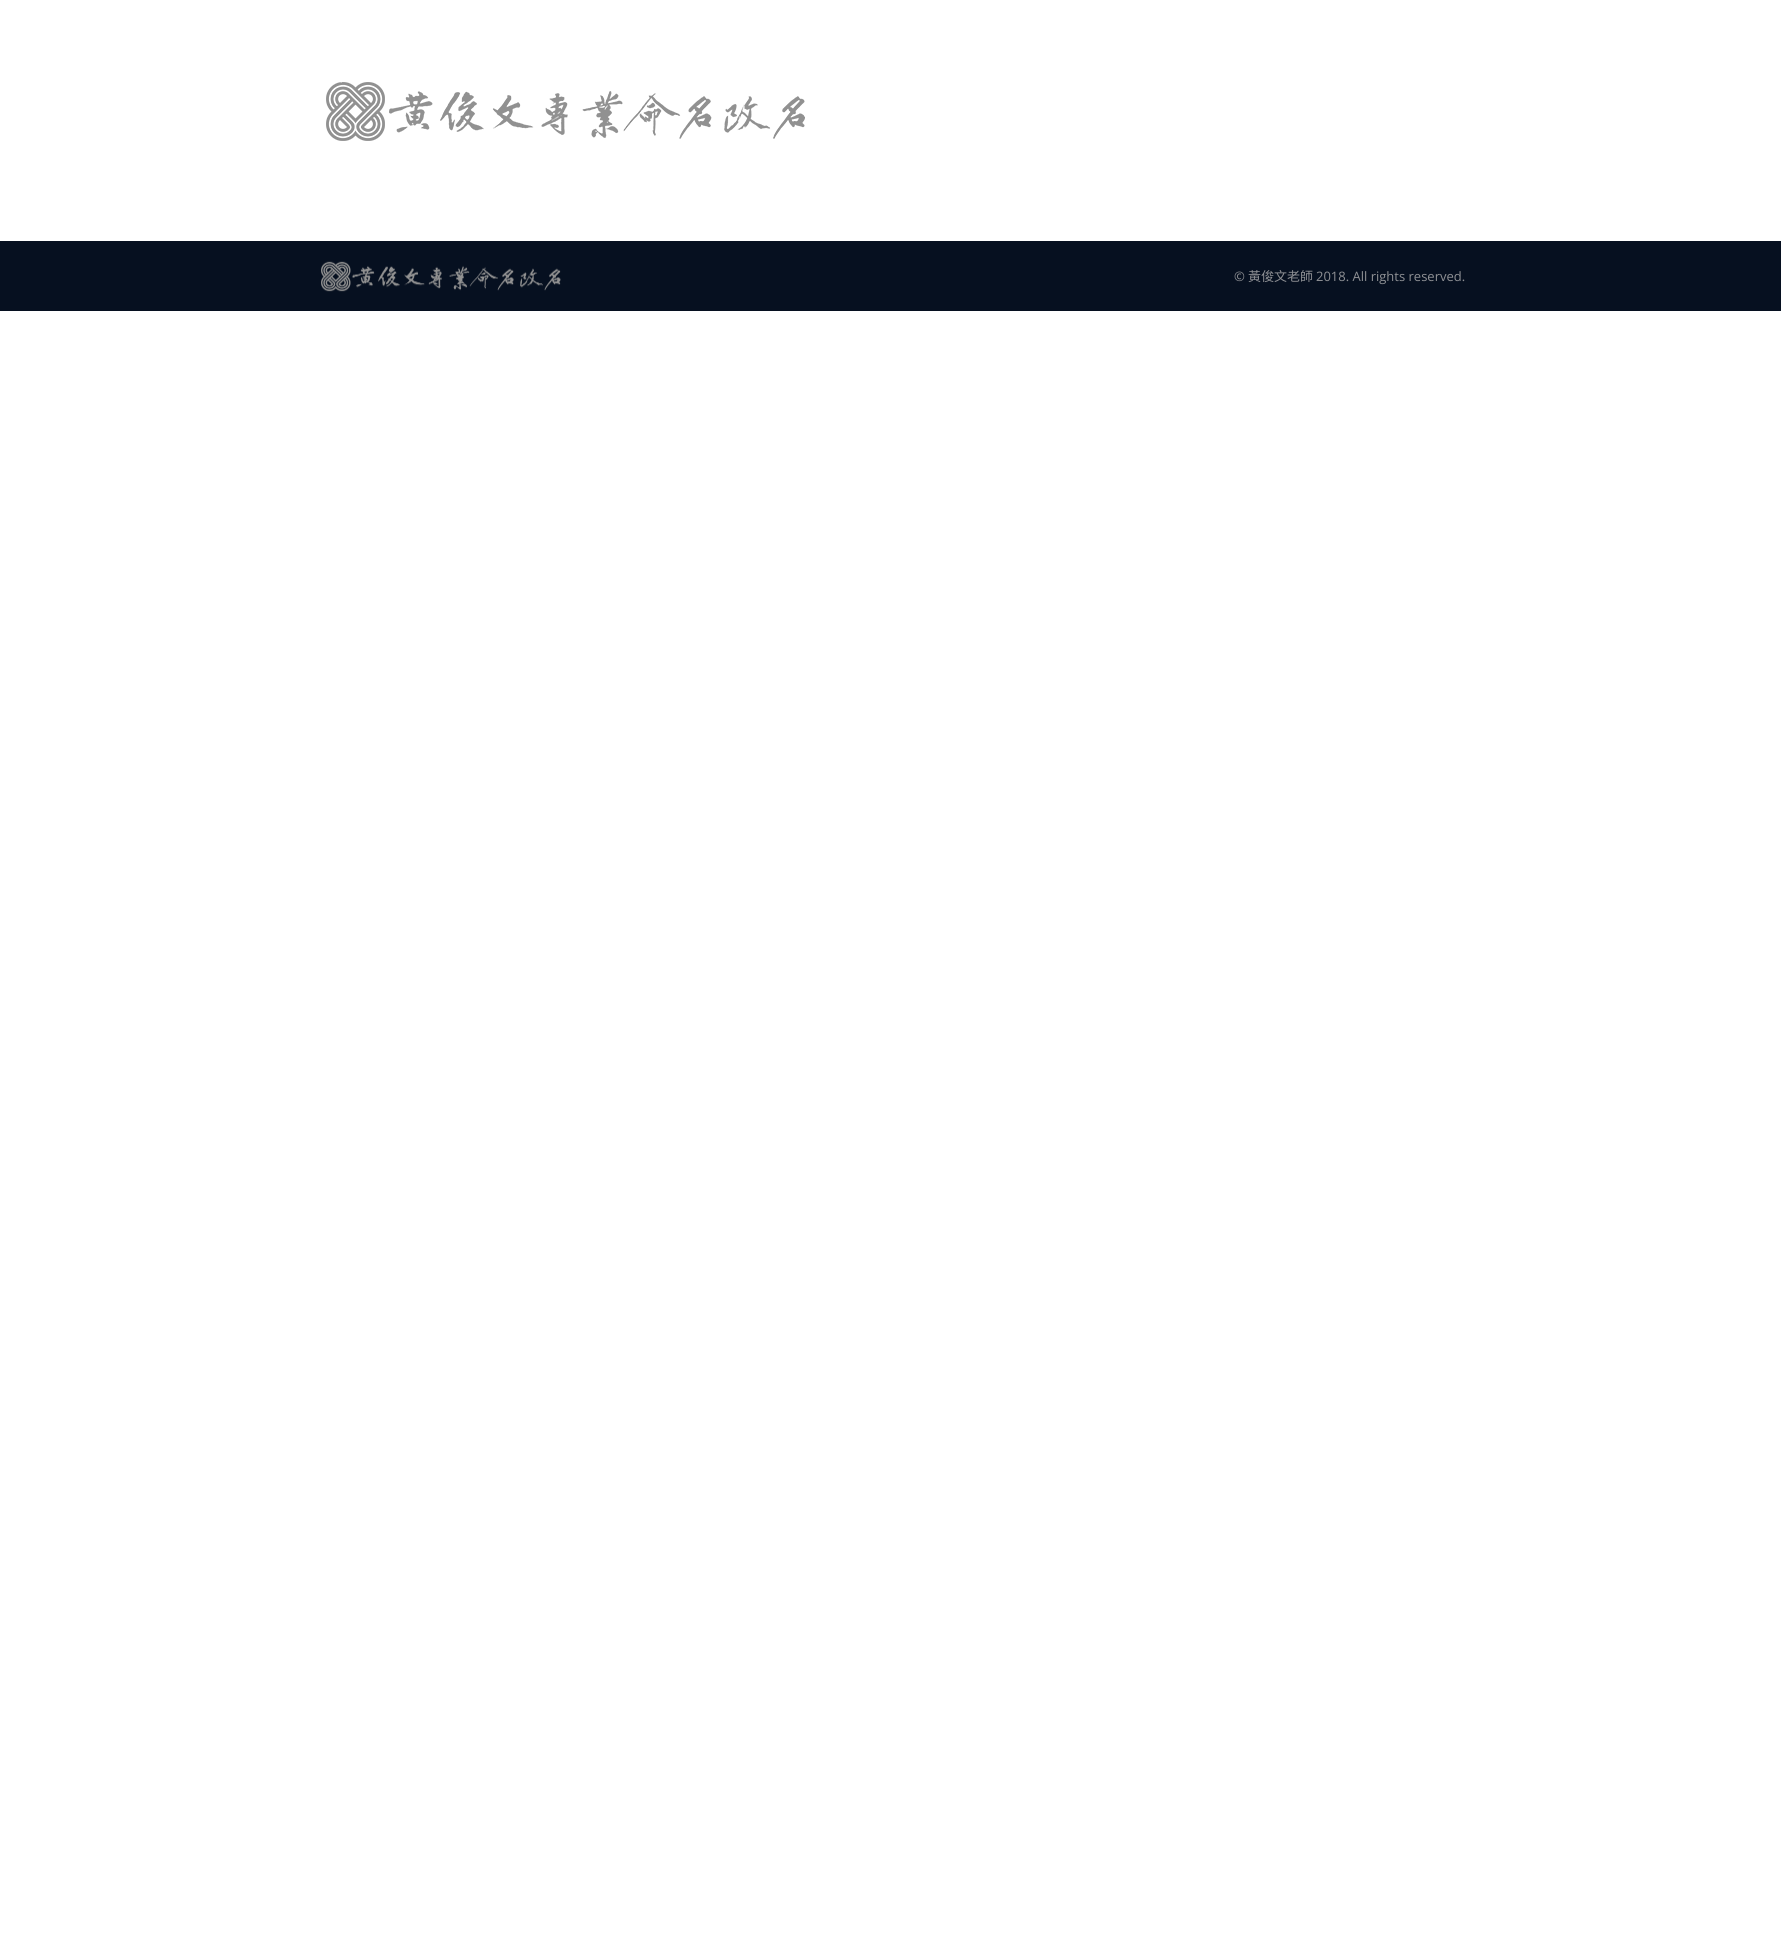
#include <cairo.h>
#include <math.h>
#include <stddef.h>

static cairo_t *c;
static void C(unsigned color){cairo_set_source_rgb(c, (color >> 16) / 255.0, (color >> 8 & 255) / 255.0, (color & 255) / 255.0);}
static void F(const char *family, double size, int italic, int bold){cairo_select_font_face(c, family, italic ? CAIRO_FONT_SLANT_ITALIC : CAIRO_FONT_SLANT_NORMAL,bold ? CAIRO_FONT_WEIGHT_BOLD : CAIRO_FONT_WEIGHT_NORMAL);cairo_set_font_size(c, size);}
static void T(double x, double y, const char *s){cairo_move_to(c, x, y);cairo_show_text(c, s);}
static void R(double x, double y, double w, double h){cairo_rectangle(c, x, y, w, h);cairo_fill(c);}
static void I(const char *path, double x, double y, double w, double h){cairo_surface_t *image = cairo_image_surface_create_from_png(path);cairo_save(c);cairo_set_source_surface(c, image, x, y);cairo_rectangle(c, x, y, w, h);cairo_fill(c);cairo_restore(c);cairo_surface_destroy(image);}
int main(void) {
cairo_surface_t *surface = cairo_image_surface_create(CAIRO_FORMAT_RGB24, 1781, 1934);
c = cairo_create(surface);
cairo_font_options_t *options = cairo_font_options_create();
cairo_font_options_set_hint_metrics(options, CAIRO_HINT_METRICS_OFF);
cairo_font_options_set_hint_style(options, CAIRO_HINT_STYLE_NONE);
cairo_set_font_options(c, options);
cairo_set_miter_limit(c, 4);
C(0xffffff);
cairo_paint(c);
I("1.png",326,82,479,59);
I("2.png",340,82,2,1);
C(0x061020);
R(0,241,1781,70);
I("3.png",321,261,240,31);
F("Open Sans",13,0,0);
C(0x8e9094);
T(1234,281,"©");
F("Noto Sans CJK TC",13,0,0);
T(1248,281,"黃俊文老師");
F("Open Sans",13,0,0);
T(1316,281,"2018. All rights reserved.");
cairo_surface_write_to_png(surface, "o.png");
cairo_font_options_destroy(options);
cairo_destroy(c);
cairo_surface_destroy(surface);
return 0;
}
